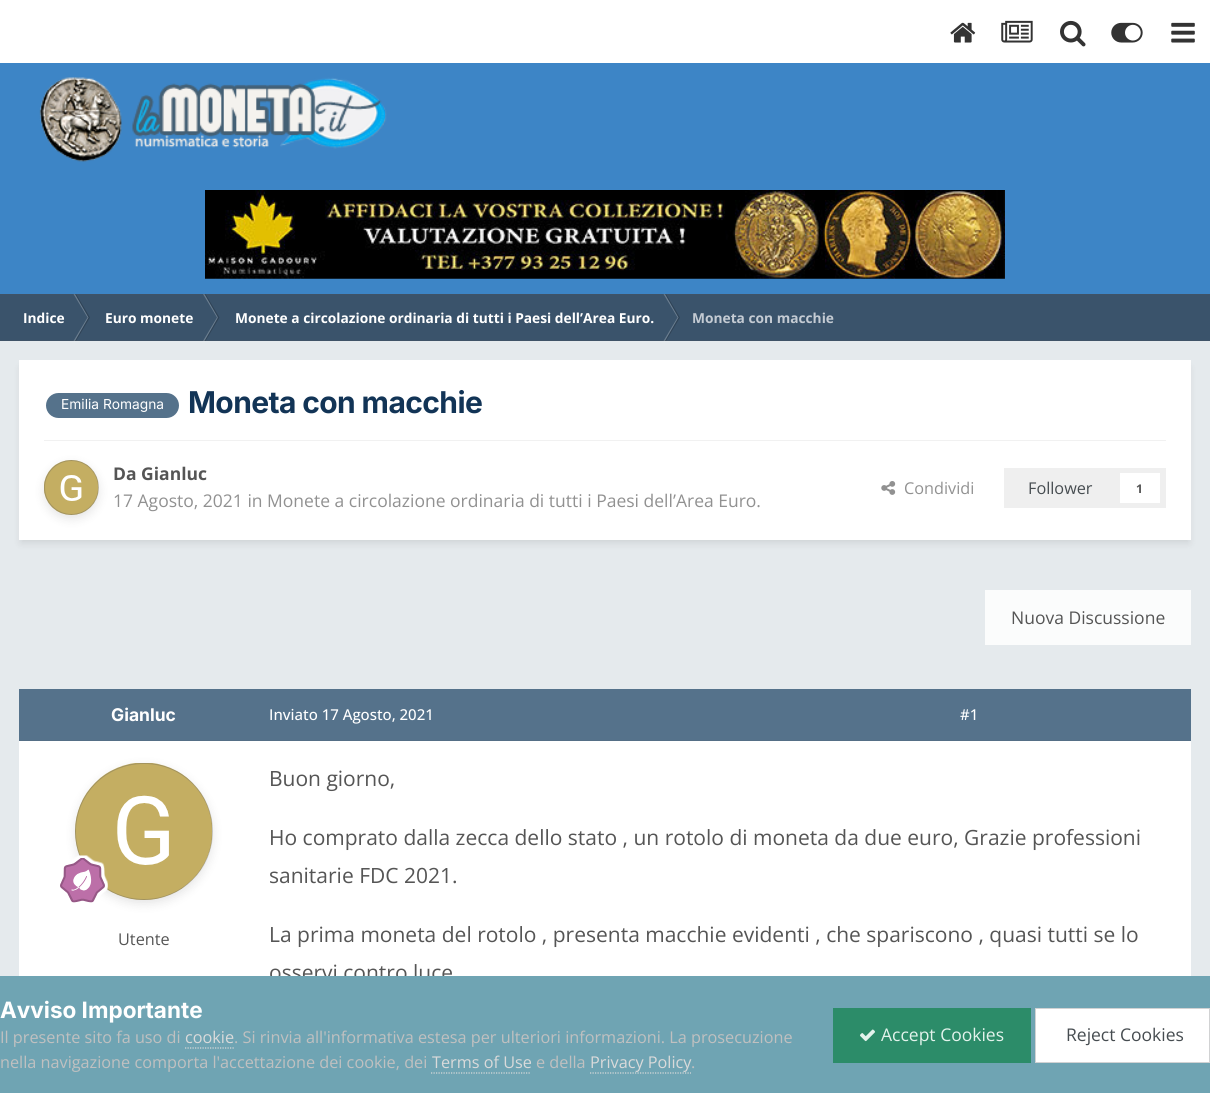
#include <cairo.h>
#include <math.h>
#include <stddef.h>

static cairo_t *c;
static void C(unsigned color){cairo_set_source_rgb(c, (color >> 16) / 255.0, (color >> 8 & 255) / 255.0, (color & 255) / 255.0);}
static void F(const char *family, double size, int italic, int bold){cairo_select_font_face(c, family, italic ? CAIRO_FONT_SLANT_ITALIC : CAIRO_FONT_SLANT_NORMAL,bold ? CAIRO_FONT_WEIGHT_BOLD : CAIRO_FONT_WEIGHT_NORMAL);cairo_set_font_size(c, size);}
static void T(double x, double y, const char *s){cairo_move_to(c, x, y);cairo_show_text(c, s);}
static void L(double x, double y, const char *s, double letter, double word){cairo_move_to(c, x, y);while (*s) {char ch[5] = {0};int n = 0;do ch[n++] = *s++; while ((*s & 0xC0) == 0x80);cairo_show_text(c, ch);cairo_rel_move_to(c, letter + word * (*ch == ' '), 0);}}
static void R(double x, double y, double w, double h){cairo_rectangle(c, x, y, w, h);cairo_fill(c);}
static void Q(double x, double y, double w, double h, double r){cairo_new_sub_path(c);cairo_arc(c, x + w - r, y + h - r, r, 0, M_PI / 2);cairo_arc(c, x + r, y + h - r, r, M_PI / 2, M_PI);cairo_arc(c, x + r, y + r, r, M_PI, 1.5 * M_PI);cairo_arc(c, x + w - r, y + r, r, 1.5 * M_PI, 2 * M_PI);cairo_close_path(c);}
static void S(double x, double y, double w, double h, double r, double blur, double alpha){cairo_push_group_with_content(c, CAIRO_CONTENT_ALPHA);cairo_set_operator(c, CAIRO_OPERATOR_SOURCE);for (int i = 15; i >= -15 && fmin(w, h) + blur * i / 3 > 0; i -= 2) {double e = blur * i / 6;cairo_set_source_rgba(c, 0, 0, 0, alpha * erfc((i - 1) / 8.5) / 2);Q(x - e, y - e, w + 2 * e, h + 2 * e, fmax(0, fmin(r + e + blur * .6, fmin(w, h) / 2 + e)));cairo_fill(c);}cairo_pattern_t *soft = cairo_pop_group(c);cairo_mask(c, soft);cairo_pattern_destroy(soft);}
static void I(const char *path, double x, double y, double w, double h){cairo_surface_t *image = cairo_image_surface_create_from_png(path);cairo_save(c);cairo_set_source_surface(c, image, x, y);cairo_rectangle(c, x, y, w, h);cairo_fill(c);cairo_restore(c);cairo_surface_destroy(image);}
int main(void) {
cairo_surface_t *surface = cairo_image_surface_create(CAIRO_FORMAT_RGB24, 1210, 1093);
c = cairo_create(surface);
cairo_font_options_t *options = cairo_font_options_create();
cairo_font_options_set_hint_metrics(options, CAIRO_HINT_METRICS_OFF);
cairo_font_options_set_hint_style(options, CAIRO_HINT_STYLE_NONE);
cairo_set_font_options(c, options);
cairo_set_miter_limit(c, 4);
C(0xe5eaed);
cairo_paint(c);
C(0xffffff);
R(0,0,1210,63);
I("1.png",950,22,26,21);
I("2.png",1001,20,32,23);
I("3.png",1060,20,26,27);
I("4.png",1111,22,32,21);
I("5.png",1171,22,24,21);
C(0x3d85c6);
R(0,63,1210,231);
I("6.png",39,77,348,85);
I("7.png",205,190,800,89);
C(0x3a536b);
R(0,294,1210,47);
C(0x6b7e90);
cairo_new_path(c);
cairo_move_to(c,73.5,294);
cairo_line_to(c,75,294);
cairo_line_to(c,88.5,317.5);
cairo_line_to(c,87.5,317.5);
cairo_close_path(c);
cairo_fill(c);
cairo_set_source_rgba(c,0,0,0,0.2);
cairo_new_path(c);
cairo_move_to(c,75,294);
cairo_line_to(c,76,294);
cairo_line_to(c,90,317.5);
cairo_line_to(c,88.5,317.5);
cairo_close_path(c);
cairo_fill(c);
C(0x6b7e90);
cairo_new_path(c);
cairo_move_to(c,203,294);
cairo_line_to(c,204.5,294);
cairo_line_to(c,218,317.5);
cairo_line_to(c,217,317.5);
cairo_close_path(c);
cairo_fill(c);
cairo_set_source_rgba(c,0,0,0,0.2);
cairo_new_path(c);
cairo_move_to(c,204.5,294);
cairo_line_to(c,205.5,294);
cairo_line_to(c,219.5,317.5);
cairo_line_to(c,218,317.5);
cairo_close_path(c);
cairo_fill(c);
C(0x6b7e90);
cairo_new_path(c);
cairo_move_to(c,663.5,294);
cairo_line_to(c,665,294);
cairo_line_to(c,678.5,317.5);
cairo_line_to(c,677.5,317.5);
cairo_close_path(c);
cairo_fill(c);
cairo_set_source_rgba(c,0,0,0,0.2);
cairo_new_path(c);
cairo_move_to(c,665,294);
cairo_line_to(c,666,294);
cairo_line_to(c,680,317.5);
cairo_line_to(c,678.5,317.5);
cairo_close_path(c);
cairo_fill(c);
cairo_set_source_rgba(c,0.333,0.333,0.333,0.2);
R(0,294,1210,1);
C(0x6b7e90);
cairo_new_path(c);
cairo_move_to(c,73.5,341);
cairo_line_to(c,75,341);
cairo_line_to(c,88.5,317.5);
cairo_line_to(c,87.5,317.5);
cairo_close_path(c);
cairo_fill(c);
cairo_set_source_rgba(c,0,0,0,0.2);
cairo_new_path(c);
cairo_move_to(c,75,341);
cairo_line_to(c,76,341);
cairo_line_to(c,90,317.5);
cairo_line_to(c,88.5,317.5);
cairo_close_path(c);
cairo_fill(c);
C(0x6b7e90);
cairo_new_path(c);
cairo_move_to(c,203,341);
cairo_line_to(c,204.5,341);
cairo_line_to(c,218,317.5);
cairo_line_to(c,217,317.5);
cairo_close_path(c);
cairo_fill(c);
cairo_set_source_rgba(c,0,0,0,0.2);
cairo_new_path(c);
cairo_move_to(c,204.5,341);
cairo_line_to(c,205.5,341);
cairo_line_to(c,219.5,317.5);
cairo_line_to(c,218,317.5);
cairo_close_path(c);
cairo_fill(c);
C(0x6b7e90);
cairo_new_path(c);
cairo_move_to(c,663.5,341);
cairo_line_to(c,665,341);
cairo_line_to(c,678.5,317.5);
cairo_line_to(c,677.5,317.5);
cairo_close_path(c);
cairo_fill(c);
cairo_set_source_rgba(c,0,0,0,0.2);
cairo_new_path(c);
cairo_move_to(c,665,341);
cairo_line_to(c,666,341);
cairo_line_to(c,680,317.5);
cairo_line_to(c,678.5,317.5);
cairo_close_path(c);
cairo_fill(c);
cairo_set_source_rgba(c,0.333,0.333,0.333,0.2);
R(0,340,1210,1);
F("Open Sans",13.75,0,1);
C(0xffffff);
T(23,323,"Indice");
T(105,323,"Euro monete");
T(235,323,"Monete a circolazione ordinaria di tutti i Paesi dell’Area Euro.");
C(0xc4cbd3);
T(692,323,"Moneta con macchie");
C(0x000000);
S(21,368,1168,175,0,4,.1);
C(0xffffff);
R(19,360,1172,180);
C(0x55728b);
Q(46,393,133,25,12.5);
cairo_fill(c);
F("Inter",13.75,0,0);
C(0xffffff);
T(61,409,"Emilia Romagna");
F("Inter",30,0,1);
C(0x123456);
L(188,413,"Moneta con macchie",-.6,0);
C(0xf1f1f1);
R(44,440,1122,1);
I("8.png",44,460,55,55);
cairo_save(c);
cairo_set_fill_rule(c,CAIRO_FILL_RULE_EVEN_ODD);
cairo_new_path(c);
cairo_move_to(c,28,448);
cairo_line_to(c,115,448);
cairo_line_to(c,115,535);
cairo_line_to(c,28,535);
cairo_close_path(c);
cairo_move_to(c,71.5,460);
cairo_curve_to(c,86.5,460,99,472.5,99,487.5);
cairo_curve_to(c,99,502.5,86.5,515,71.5,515);
cairo_curve_to(c,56.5,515,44,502.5,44,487.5);
cairo_curve_to(c,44,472.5,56.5,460,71.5,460);
cairo_close_path(c);
cairo_clip(c);
C(0x000000);
S(44,464,55,55,27.5,5,.1);
cairo_restore(c);
cairo_arc(c,71.5,487.5,27,0,2 * M_PI);
cairo_set_source_rgba(c,0.333,0.333,0.333,0.3);
cairo_set_line_width(c,1);
cairo_stroke(c);
F("Open Sans",17.5,0,1);
C(0x555555);
T(113,480,"Da Gianluc");
F("Open Sans",17.5,0,0);
C(0x919191);
T(113,507,"17 Agosto, 2021 in Monete a circolazione ordinaria di tutti i Paesi dell’Area Euro.");
I("9.png",881,481,15,14);
F("Open Sans",16.25,0,0);
T(904,494,"Condividi");
C(0xefefef);
R(1004,468,162,40);
C(0x464c50);
T(1028,494,"Follower");
C(0xffffff);
R(1120,473,40,30);
F("Open Sans",12,0,1);
C(0x555555);
T(1136,493,"1");
C(0xfbfcfc);
R(985,590,206,55);
F("Open Sans",17.5,0,0);
C(0x555555);
T(1011,624,"Nuova Discussione");
C(0xffffff);
R(19,741,1172,235);
C(0x55728b);
R(19,689,1172,51);
C(0x556f86);
R(19,740,1172,1);
F("Inter",17.5,0,1);
C(0xffffff);
T(111,721,"Gianluc");
I("10.png",75,763,138,137);
cairo_save(c);
cairo_set_fill_rule(c,CAIRO_FILL_RULE_EVEN_ODD);
cairo_new_path(c);
cairo_move_to(c,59,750);
cairo_line_to(c,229,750);
cairo_line_to(c,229,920);
cairo_line_to(c,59,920);
cairo_close_path(c);
cairo_move_to(c,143.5,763);
cairo_line_to(c,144.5,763);
cairo_curve_to(c,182.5,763,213,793.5,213,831.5);
cairo_curve_to(c,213,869.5,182.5,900,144.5,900);
cairo_line_to(c,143.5,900);
cairo_curve_to(c,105.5,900,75,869.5,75,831.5);
cairo_curve_to(c,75,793.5,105.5,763,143.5,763);
cairo_close_path(c);
cairo_clip(c);
C(0x000000);
S(75,766,138,138,69,5,.1);
cairo_restore(c);
Q(75.5,763.5,137,136,68);
cairo_set_source_rgba(c,0.333,0.333,0.333,0.3);
cairo_stroke(c);
I("11.png",60,855,48,48);
F("Open Sans",16.25,0,0);
C(0x555555);
T(118,945,"Utente");
F("Open Sans Medium",15,0,0);
C(0xffffff);
T(269,720,"Inviato 17 Agosto, 2021");
T(960,720,"#1");
F("Open Sans",21,0,0);
C(0x555555);
T(269,786,"Buon giorno,");
T(269,845,"Ho comprato dalla zecca dello stato , un rotolo di moneta da due euro, Grazie professioni");
T(269,883,"sanitarie FDC 2021.");
T(269,942,"La prima moneta del rotolo , presenta macchie evidenti , che spariscono , quasi tutti se lo");
T(269,980,"osservi contro luce");
C(0x6fa4b3);
R(0,976,1210,117);
F("Inter",22.5,0,1);
C(0xffffff);
T(0,1018,"Avviso Importante");
F("Open Sans",16.25,0,0);
C(0xc0c0c0);
T(0,1043,"Il presente sito fa uso di");
C(0xdadada);
T(185,1043,"cookie");
cairo_new_path(c);
cairo_move_to(c,185,1048);
cairo_line_to(c,234,1048);
cairo_set_line_width(c,1.2);
cairo_set_dash(c,(double[]){1.25,1.25},2,0);
cairo_stroke(c);
C(0xc0c0c0);
T(234,1043,". Si rinvia all'informativa estesa per ulteriori informazioni. La prosecuzione");
T(0,1068,"nella navigazione comporta l'accettazione dei cookie, dei");
C(0xdadada);
T(432,1068,"Terms of Use");
cairo_new_path(c);
cairo_move_to(c,431,1073);
cairo_line_to(c,531,1073);
cairo_stroke(c);
C(0xc0c0c0);
T(536,1068,"e della");
C(0xdadada);
T(590,1068,"Privacy Policy");
cairo_new_path(c);
cairo_move_to(c,590,1073);
cairo_line_to(c,691,1073);
cairo_stroke(c);
C(0xc0c0c0);
T(691,1068,".");
C(0x2c8c69);
R(833,1008,198,55);
I("12.png",860,1029,15,13);
F("Open Sans",17.5,0,0);
C(0xe3f3ec);
T(881,1041,"Accept Cookies");
C(0xffffff);
cairo_rectangle(c,1035.5,1008.5,174,54);
cairo_fill_preserve(c);
C(0xd1d2d3);
cairo_set_line_width(c,1);
cairo_set_dash(c,NULL,0,0);
cairo_stroke(c);
C(0x464c50);
T(1066,1041,"Reject Cookies");
cairo_surface_write_to_png(surface, "o.png");
cairo_font_options_destroy(options);
cairo_destroy(c);
cairo_surface_destroy(surface);
return 0;
}
